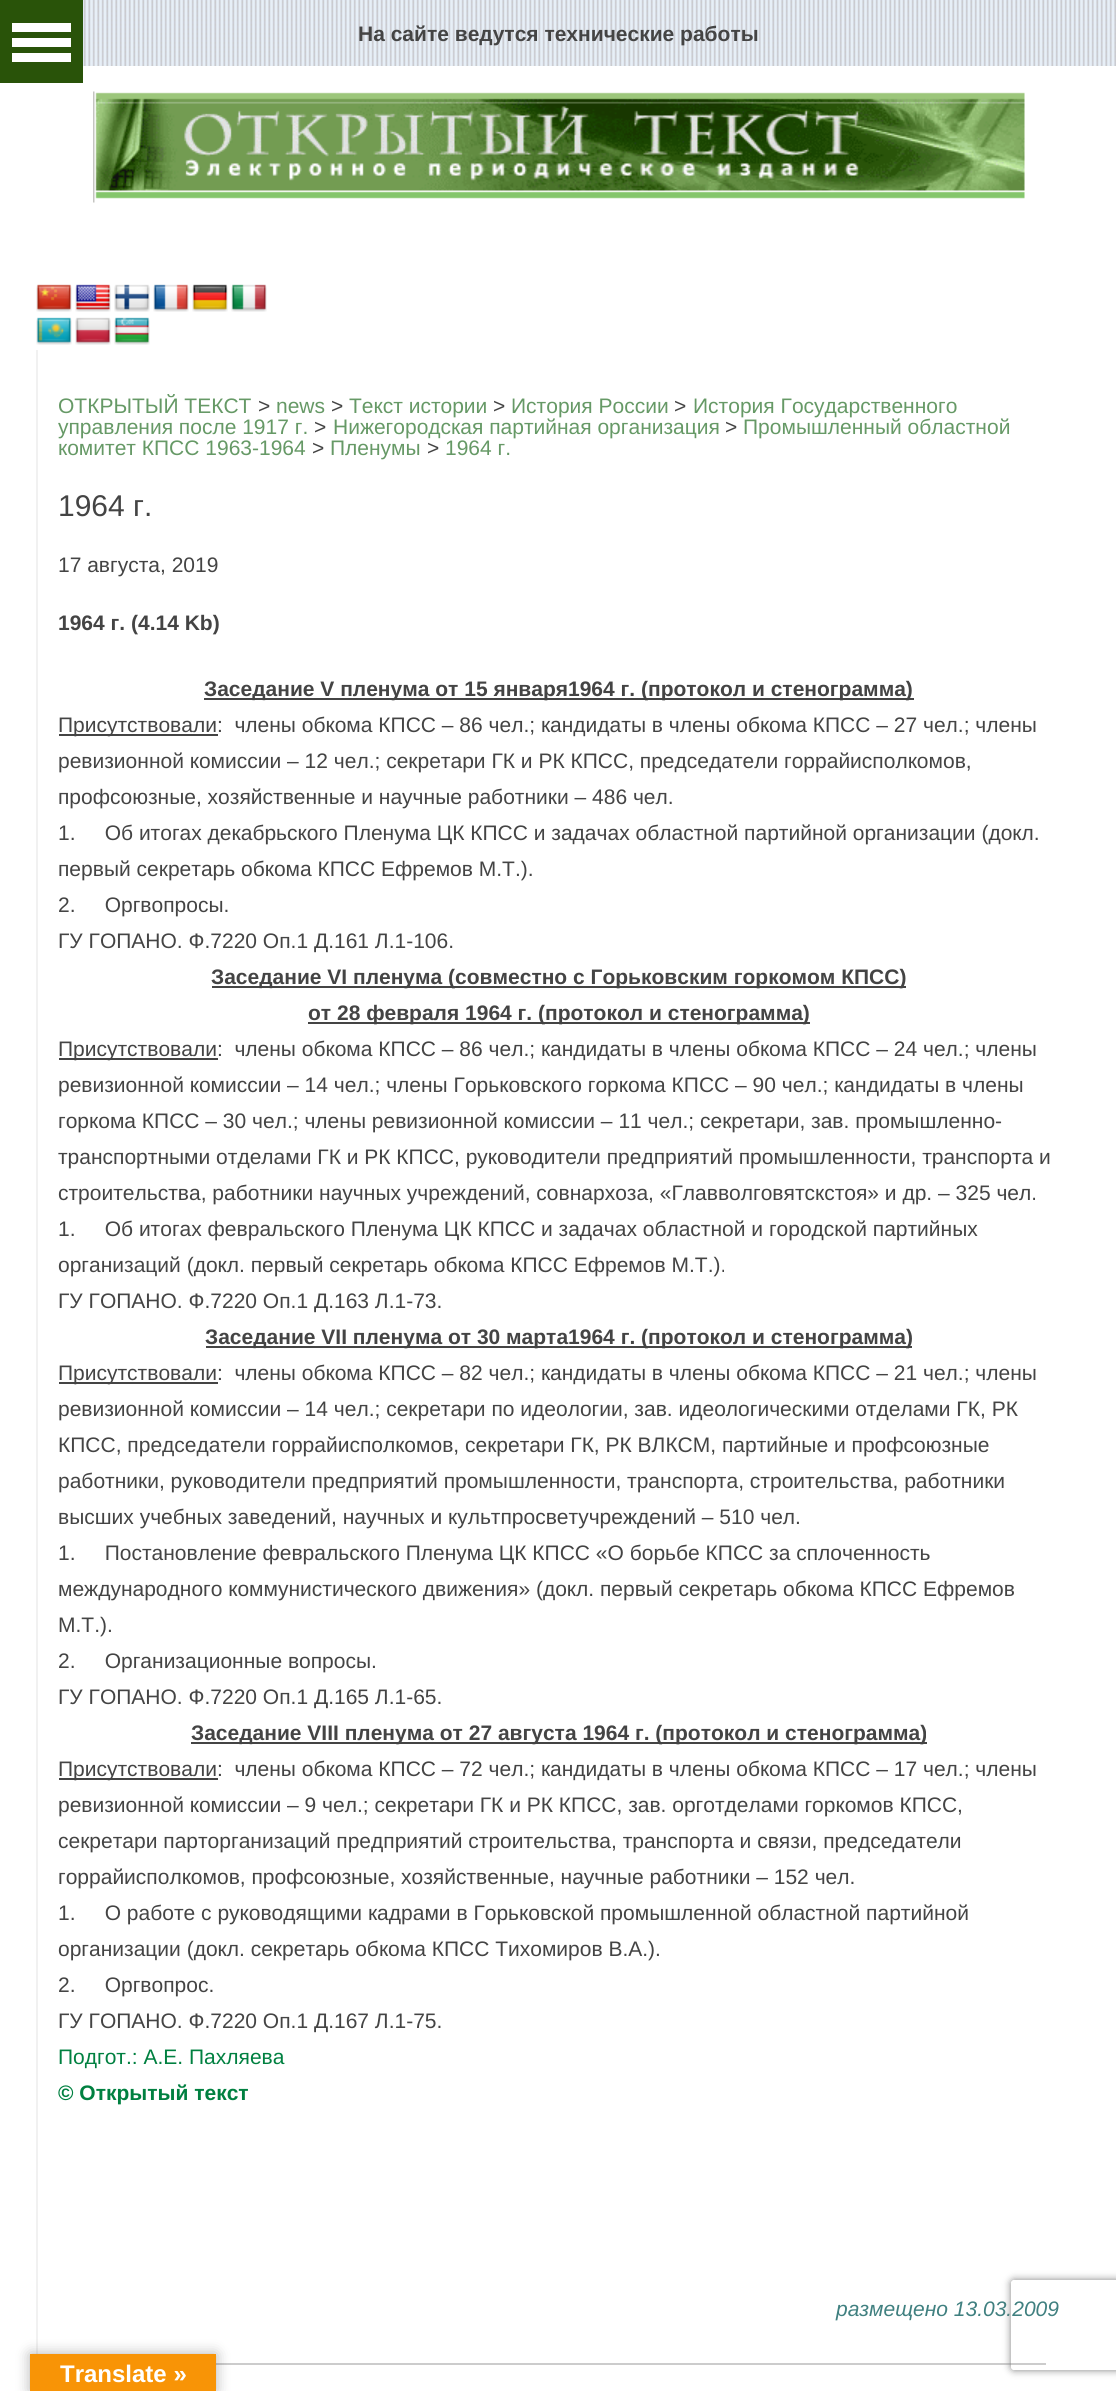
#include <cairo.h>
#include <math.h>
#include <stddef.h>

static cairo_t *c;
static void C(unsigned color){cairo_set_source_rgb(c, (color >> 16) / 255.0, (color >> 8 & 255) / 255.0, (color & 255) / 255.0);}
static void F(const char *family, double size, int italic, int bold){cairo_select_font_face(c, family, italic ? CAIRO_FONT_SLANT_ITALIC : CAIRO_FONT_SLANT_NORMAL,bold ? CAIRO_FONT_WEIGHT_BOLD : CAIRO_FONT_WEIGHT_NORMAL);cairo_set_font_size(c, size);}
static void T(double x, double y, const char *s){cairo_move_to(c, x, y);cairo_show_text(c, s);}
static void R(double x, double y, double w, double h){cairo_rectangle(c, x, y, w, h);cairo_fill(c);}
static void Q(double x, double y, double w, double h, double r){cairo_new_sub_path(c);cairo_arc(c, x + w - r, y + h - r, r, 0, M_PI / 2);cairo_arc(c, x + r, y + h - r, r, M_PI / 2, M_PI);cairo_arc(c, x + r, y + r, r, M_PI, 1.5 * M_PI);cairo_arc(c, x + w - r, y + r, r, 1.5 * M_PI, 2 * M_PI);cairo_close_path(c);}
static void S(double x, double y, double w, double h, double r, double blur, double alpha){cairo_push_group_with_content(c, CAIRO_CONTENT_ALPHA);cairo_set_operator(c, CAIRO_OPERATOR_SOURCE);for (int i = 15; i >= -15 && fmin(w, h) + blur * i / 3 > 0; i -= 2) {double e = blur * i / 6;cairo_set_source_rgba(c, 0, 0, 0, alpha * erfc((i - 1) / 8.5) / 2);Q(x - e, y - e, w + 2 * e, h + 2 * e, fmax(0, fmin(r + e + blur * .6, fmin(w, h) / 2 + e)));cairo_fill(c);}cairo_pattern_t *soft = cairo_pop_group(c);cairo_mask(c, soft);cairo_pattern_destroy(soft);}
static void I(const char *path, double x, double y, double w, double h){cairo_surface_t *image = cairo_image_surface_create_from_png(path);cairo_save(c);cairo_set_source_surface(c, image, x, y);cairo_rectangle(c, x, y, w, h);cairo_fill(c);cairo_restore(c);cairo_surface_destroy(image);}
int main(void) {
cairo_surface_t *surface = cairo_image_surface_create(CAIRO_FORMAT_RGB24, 1116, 2391);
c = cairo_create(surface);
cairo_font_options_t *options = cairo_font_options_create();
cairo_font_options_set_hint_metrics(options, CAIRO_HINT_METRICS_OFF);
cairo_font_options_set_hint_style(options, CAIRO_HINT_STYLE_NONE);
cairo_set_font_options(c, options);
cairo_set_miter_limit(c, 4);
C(0xffffff);
cairo_paint(c);
I("1.png",83,0,1033,66);
C(0x295309);
R(0,0,83,83);
C(0xffffff);
R(12,38,59,9);
R(12,23,59,9);
R(12,53,59,9);
F("Liberation Sans",21,0,1);
C(0x444444);
T(358,41,"На сайте ведутся технические работы");
I("2.png",93,91,932,112);
I("3.png",36,284,36,28);
I("4.png",75,284,36,28);
I("5.png",114,284,36,28);
I("6.png",153,284,36,28);
I("7.png",192,284,36,28);
I("8.png",231,284,36,28);
I("9.png",36,317,36,28);
I("10.png",75,317,36,28);
I("11.png",114,317,36,28);
C(0xf1f1f1);
R(36,350,2,2004);
F("Liberation Sans",21,0,0);
C(0x669966);
T(58,413,"ОТКРЫТЫЙ ТЕКСТ");
C(0x444444);
T(258,413,">");
C(0x669966);
T(276,413,"news");
C(0x444444);
T(331,413,">");
C(0x669966);
T(349,413,"Текст истории");
C(0x444444);
T(493,413,">");
C(0x669966);
T(511,413,"История России");
C(0x444444);
T(674,413,">");
C(0x669966);
T(693,413,"История Государственного");
T(58,434,"управления после 1917 г.");
C(0x444444);
T(314,434,">");
C(0x669966);
T(333,434,"Нижегородская партийная организация");
C(0x444444);
T(725,434,">");
C(0x669966);
T(743,434,"Промышленный областной");
T(58,455,"комитет КПСС 1963-1964");
C(0x444444);
T(312,455,">");
C(0x669966);
T(330,455,"Пленумы");
C(0x444444);
T(427,455,">");
C(0x669966);
T(445,455,"1964 г.");
F("Liberation Sans",30,0,0);
C(0x444444);
T(58,516,"1964 г.");
F("Liberation Sans",21,0,0);
T(58,572,"17 августа, 2019");
F("Liberation Sans",21,0,1);
T(58,630,"1964 г. (4.14 Kb)");
R(204,698,710,2);
T(204,696,"Заседание V пленума от 15 января1964 г. (протокол и стенограмма)");
R(59,734,159,2);
F("Liberation Sans",21,0,0);
T(58,732,"Присутствовали:  члены обкома КПСС – 86 чел.; кандидаты в члены обкома КПСС – 27 чел.; члены");
T(58,768,"ревизионной комиссии – 12 чел.; секретари ГК и РК КПСС, председатели горрайисполкомов,");
T(58,804,"профсоюзные, хозяйственные и научные работники – 486 чел.");
T(58,840,"1.     Об итогах декабрьского Пленума ЦК КПСС и задачах областной партийной организации (докл.");
T(58,876,"первый секретарь обкома КПСС Ефремов М.Т.).");
T(58,912,"2.     Оргвопросы.");
T(58,948,"ГУ ГОПАНО. Ф.7220 Оп.1 Д.161 Л.1-106.");
R(212,986,694,2);
F("Liberation Sans",21,0,1);
T(211,984,"Заседание VI пленума (совместно с Горьковским горкомом КПСС)");
R(308,1022,502,2);
T(308,1020,"от 28 февраля 1964 г. (протокол и стенограмма)");
R(59,1058,159,2);
F("Liberation Sans",21,0,0);
T(58,1056,"Присутствовали:  члены обкома КПСС – 86 чел.; кандидаты в члены обкома КПСС – 24 чел.; члены");
T(58,1092,"ревизионной комиссии – 14 чел.; члены Горьковского горкома КПСС – 90 чел.; кандидаты в члены");
T(58,1128,"горкома КПСС – 30 чел.; члены ревизионной комиссии – 11 чел.; секретари, зав. промышленно-");
T(58,1164,"транспортными отделами ГК и РК КПСС, руководители предприятий промышленности, транспорта и");
T(58,1200,"строительства, работники научных учреждений, совнархоза, «Главволговятскстоя» и др. – 325 чел.");
T(58,1236,"1.     Об итогах февральского Пленума ЦК КПСС и задачах областной и городской партийных");
T(58,1272,"организаций (докл. первый секретарь обкома КПСС Ефремов М.Т.).");
T(58,1308,"ГУ ГОПАНО. Ф.7220 Оп.1 Д.163 Л.1-73.");
R(206,1346,706,2);
F("Liberation Sans",21,0,1);
T(205,1344,"Заседание VII пленума от 30 марта1964 г. (протокол и стенограмма)");
R(59,1382,159,2);
F("Liberation Sans",21,0,0);
T(58,1380,"Присутствовали:  члены обкома КПСС – 82 чел.; кандидаты в члены обкома КПСС – 21 чел.; члены");
T(58,1416,"ревизионной комиссии – 14 чел.; секретари по идеологии, зав. идеологическими отделами ГК, РК");
T(58,1452,"КПСС, председатели горрайисполкомов, секретари ГК, РК ВЛКСМ, партийные и профсоюзные");
T(58,1488,"работники, руководители предприятий промышленности, транспорта, строительства, работники");
T(58,1524,"высших учебных заведений, научных и культпросветучреждений – 510 чел.");
T(58,1560,"1.     Постановление февральского Пленума ЦК КПСС «О борьбе КПСС за сплоченность");
T(58,1596,"международного коммунистического движения» (докл. первый секретарь обкома КПСС Ефремов");
T(58,1632,"М.Т.).");
T(58,1668,"2.     Организационные вопросы.");
T(58,1704,"ГУ ГОПАНО. Ф.7220 Оп.1 Д.165 Л.1-65.");
R(191,1742,736,2);
F("Liberation Sans",21,0,1);
T(191,1740,"Заседание VIII пленума от 27 августа 1964 г. (протокол и стенограмма)");
R(59,1778,159,2);
F("Liberation Sans",21,0,0);
T(58,1776,"Присутствовали:  члены обкома КПСС – 72 чел.; кандидаты в члены обкома КПСС – 17 чел.; члены");
T(58,1812,"ревизионной комиссии – 9 чел.; секретари ГК и РК КПСС, зав. орготделами горкомов КПСС,");
T(58,1848,"секретари парторганизаций предприятий строительства, транспорта и связи, председатели");
T(58,1884,"горрайисполкомов, профсоюзные, хозяйственные, научные работники – 152 чел.");
T(58,1920,"1.     О работе с руководящими кадрами в Горьковской промышленной областной партийной");
T(58,1956,"организации (докл. секретарь обкома КПСС Тихомиров В.А.).");
T(58,1992,"2.     Оргвопрос.");
T(58,2028,"ГУ ГОПАНО. Ф.7220 Оп.1 Д.167 Л.1-75.");
C(0x008040);
T(58,2064,"Подгот.: А.Е. Пахляева");
F("Liberation Sans",21,0,1);
T(58,2100,"© Открытый текст");
F("Liberation Sans",21,1,0);
C(0x408080);
T(836,2316,"размещено 13.03.2009");
C(0xcccccc);
R(216,2363,830,2);
C(0x000000);
S(30,2354,186,37,0,7,.3);
C(0xf89406);
R(30,2354,186,37);
F("Liberation Sans",24,0,1);
C(0xffffff);
T(60,2382,"Translate »");
cairo_save(c);
cairo_set_fill_rule(c,CAIRO_FILL_RULE_EVEN_ODD);
cairo_new_path(c);
cairo_move_to(c,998,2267);
cairo_line_to(c,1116,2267);
cairo_line_to(c,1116,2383);
cairo_line_to(c,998,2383);
cairo_close_path(c);
cairo_move_to(c,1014,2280);
cairo_line_to(c,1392,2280);
cairo_curve_to(c,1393.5,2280,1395,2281.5,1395,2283);
cairo_line_to(c,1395,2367);
cairo_curve_to(c,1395,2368.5,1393.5,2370,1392,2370);
cairo_line_to(c,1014,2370);
cairo_curve_to(c,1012.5,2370,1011,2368.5,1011,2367);
cairo_line_to(c,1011,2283);
cairo_curve_to(c,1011,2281.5,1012.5,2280,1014,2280);
cairo_close_path(c);
cairo_clip(c);
C(0x808080);
S(1011,2280,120,90,3,4,1);
cairo_restore(c);
cairo_surface_write_to_png(surface, "o.png");
cairo_font_options_destroy(options);
cairo_destroy(c);
cairo_surface_destroy(surface);
return 0;
}
